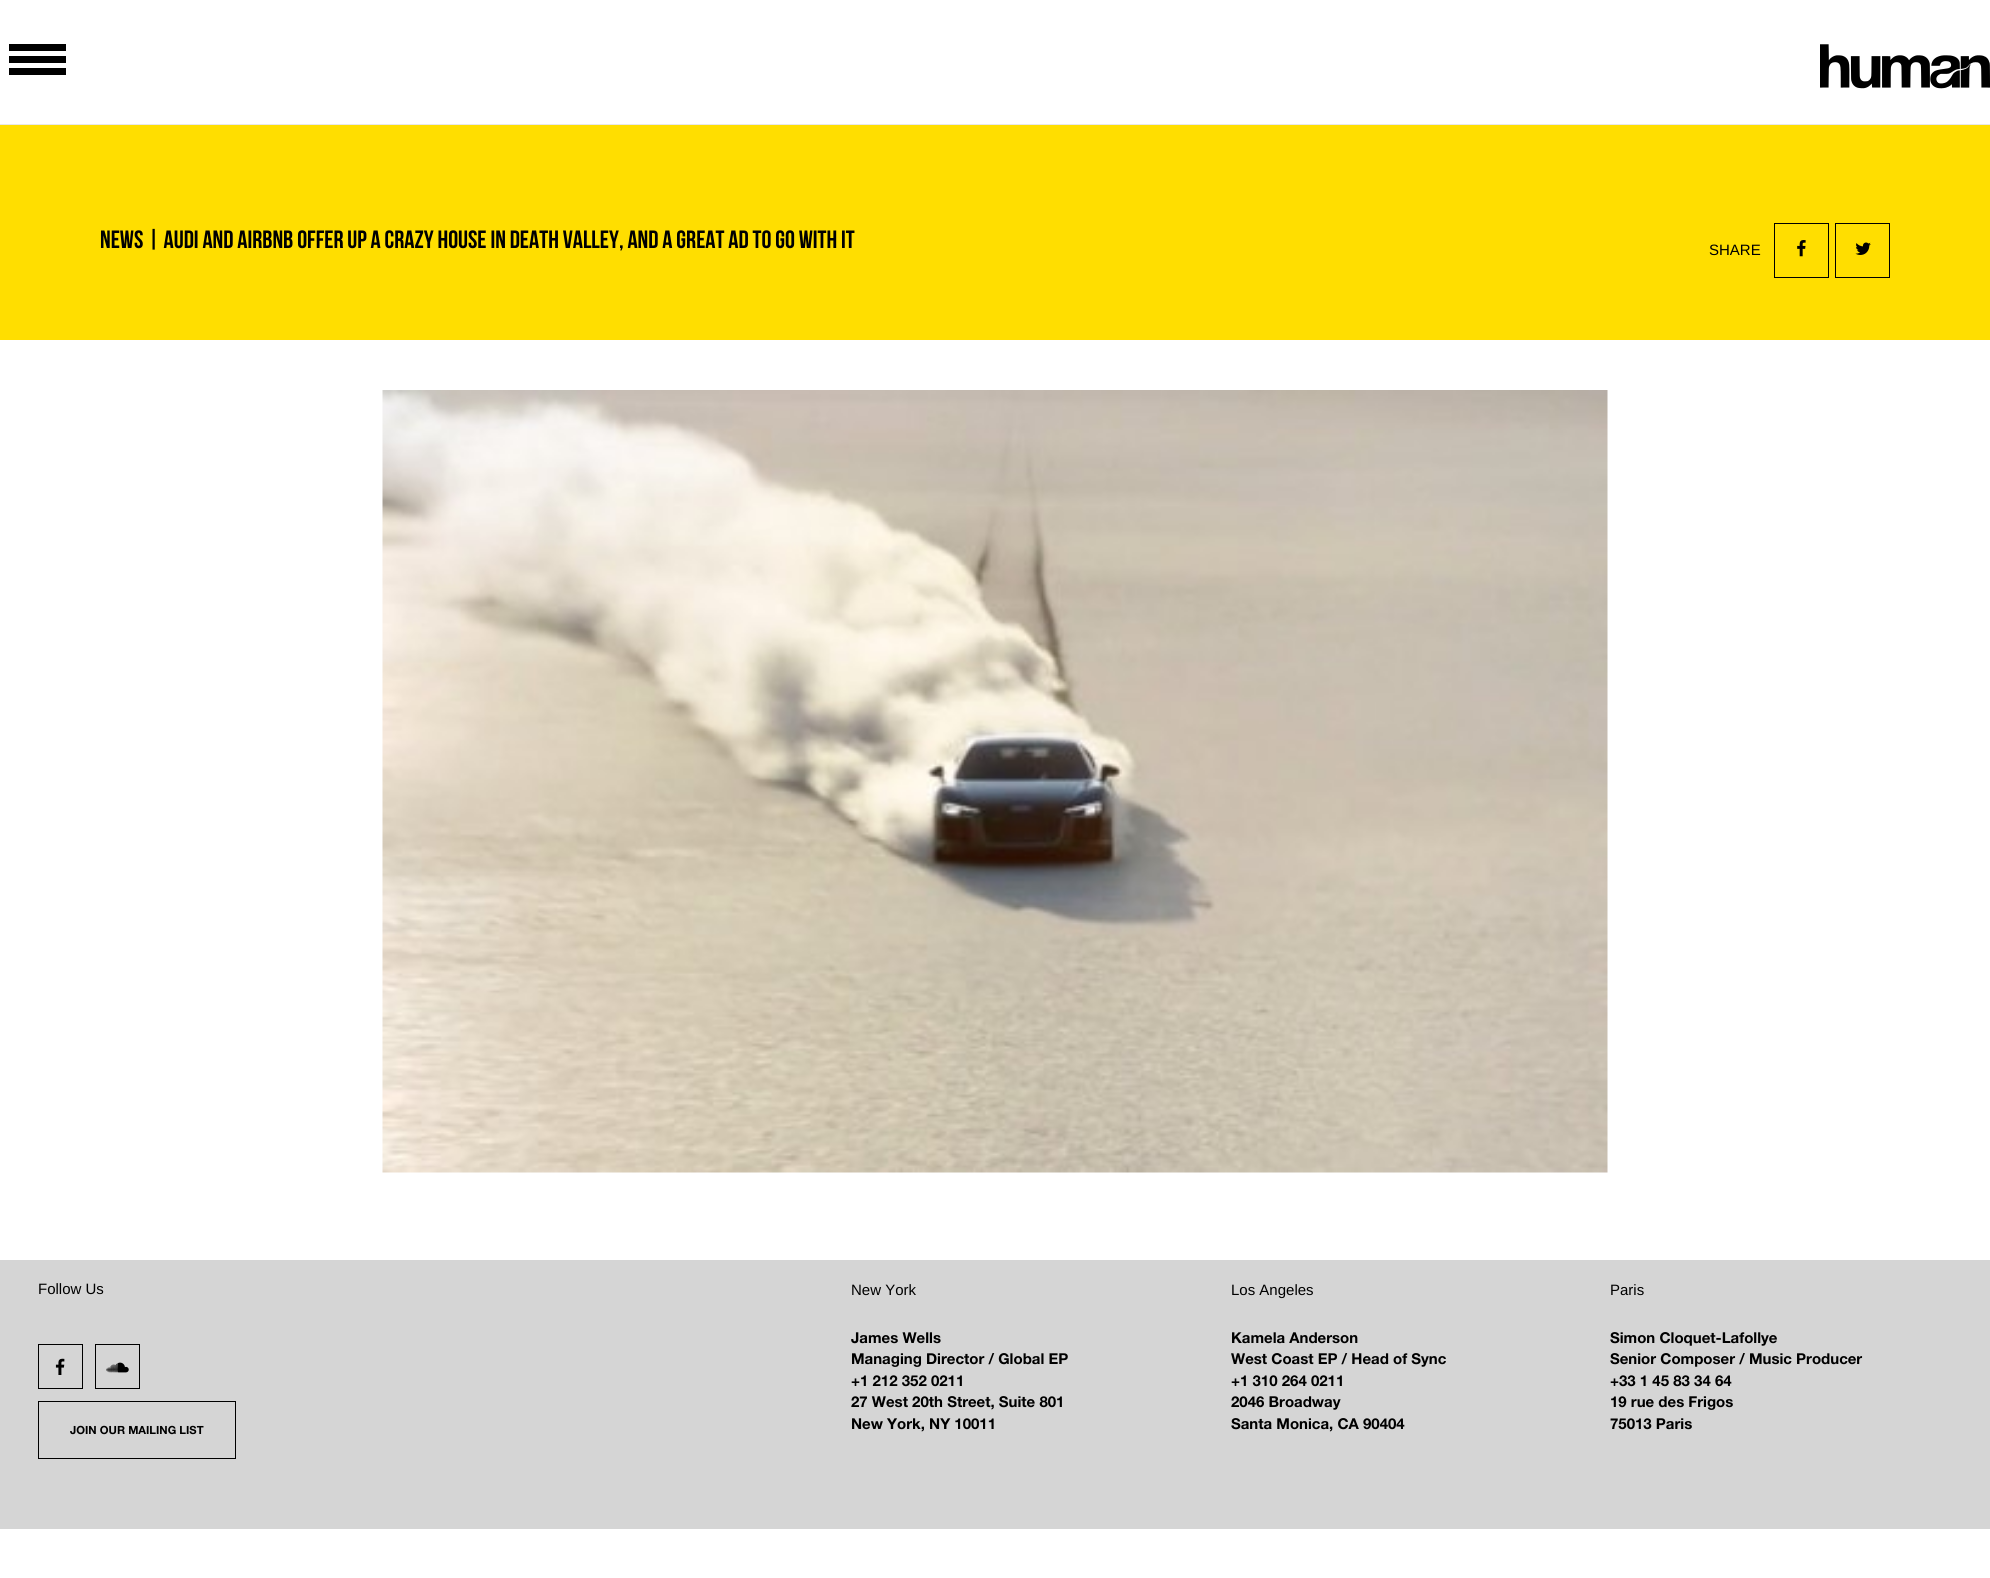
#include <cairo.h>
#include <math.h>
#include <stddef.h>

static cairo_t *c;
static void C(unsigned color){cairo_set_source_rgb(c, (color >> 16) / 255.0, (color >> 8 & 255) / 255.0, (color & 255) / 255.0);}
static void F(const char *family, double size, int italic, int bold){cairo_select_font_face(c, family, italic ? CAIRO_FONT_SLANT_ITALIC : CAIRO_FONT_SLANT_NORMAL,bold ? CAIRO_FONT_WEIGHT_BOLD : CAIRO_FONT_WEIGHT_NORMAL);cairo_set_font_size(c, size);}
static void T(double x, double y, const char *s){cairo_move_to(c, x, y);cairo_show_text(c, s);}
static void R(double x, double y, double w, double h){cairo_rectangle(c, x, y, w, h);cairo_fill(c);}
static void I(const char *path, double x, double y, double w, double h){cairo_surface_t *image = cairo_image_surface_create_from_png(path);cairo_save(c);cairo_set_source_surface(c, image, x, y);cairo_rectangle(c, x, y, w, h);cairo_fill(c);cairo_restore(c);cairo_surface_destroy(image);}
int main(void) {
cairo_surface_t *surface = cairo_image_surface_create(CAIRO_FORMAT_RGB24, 1990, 1578);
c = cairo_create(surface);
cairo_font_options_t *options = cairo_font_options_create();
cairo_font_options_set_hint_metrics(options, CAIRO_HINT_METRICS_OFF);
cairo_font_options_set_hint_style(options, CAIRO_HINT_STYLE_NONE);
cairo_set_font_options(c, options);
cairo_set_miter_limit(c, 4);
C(0xffffff);
cairo_paint(c);
C(0xe8e8e8);
R(0,124,1990,1);
C(0x000000);
R(9,44,57,7);
R(9,56,57,7);
R(9,68,57,7);
I("1.png",1820,44,170,45);
C(0xffde00);
R(0,125,1990,215);
F("Bebas Neue",25,0,1);
C(0x000000);
T(100,248,"News | Audi and Airbnb Offer Up a Crazy House in Death Valley, and a Great Ad to Go With It");
F("Liberation Sans",15,0,0);
T(1709,255,"SHARE");
cairo_rectangle(c,1774.5,223.5,54,54);
cairo_set_line_width(c,1);
cairo_stroke(c);
I("2.png",1797,240,9,17);
cairo_rectangle(c,1835.5,223.5,54,54);
cairo_stroke(c);
I("3.png",1855,242,16,13);
I("4.png",382,390,1226,783);
C(0xd5d5d5);
R(0,1260,1990,269);
C(0x000000);
T(38,1294,"Follow Us");
cairo_rectangle(c,38.5,1344.5,44,44);
cairo_stroke(c);
I("5.png",55,1358,10,17);
cairo_rectangle(c,95.5,1344.5,44,44);
cairo_stroke(c);
I("6.png",106,1362,23,11);
cairo_rectangle(c,38.5,1401.5,197,57);
cairo_stroke(c);
F("Helvetica Neue",11.25,0,1);
T(70,1434,"JOIN OUR MAILING LIST");
F("Liberation Sans",15,0,0);
T(851,1295,"New York");
F("Helvetica Neue",15,0,1);
T(851,1343,"James Wells");
T(851,1364,"Managing Director / Global EP");
T(851,1386,"+1 212 352 0211");
T(851,1407,"27 West 20th Street, Suite 801");
T(851,1429,"New York, NY 10011");
F("Liberation Sans",15,0,0);
T(1231,1295,"Los Angeles");
F("Helvetica Neue",15,0,1);
T(1231,1343,"Kamela Anderson");
T(1231,1364,"West Coast EP / Head of Sync");
T(1231,1386,"+1 310 264 0211");
T(1231,1407,"2046 Broadway");
T(1231,1429,"Santa Monica, CA 90404");
F("Liberation Sans",15,0,0);
T(1610,1295,"Paris");
F("Helvetica Neue",15,0,1);
T(1610,1343,"Simon Cloquet-Lafollye");
T(1610,1364,"Senior Composer / Music Producer");
T(1610,1386,"+33 1 45 83 34 64");
T(1610,1407,"19 rue des Frigos");
T(1610,1429,"75013 Paris");
cairo_surface_write_to_png(surface, "o.png");
cairo_font_options_destroy(options);
cairo_destroy(c);
cairo_surface_destroy(surface);
return 0;
}
